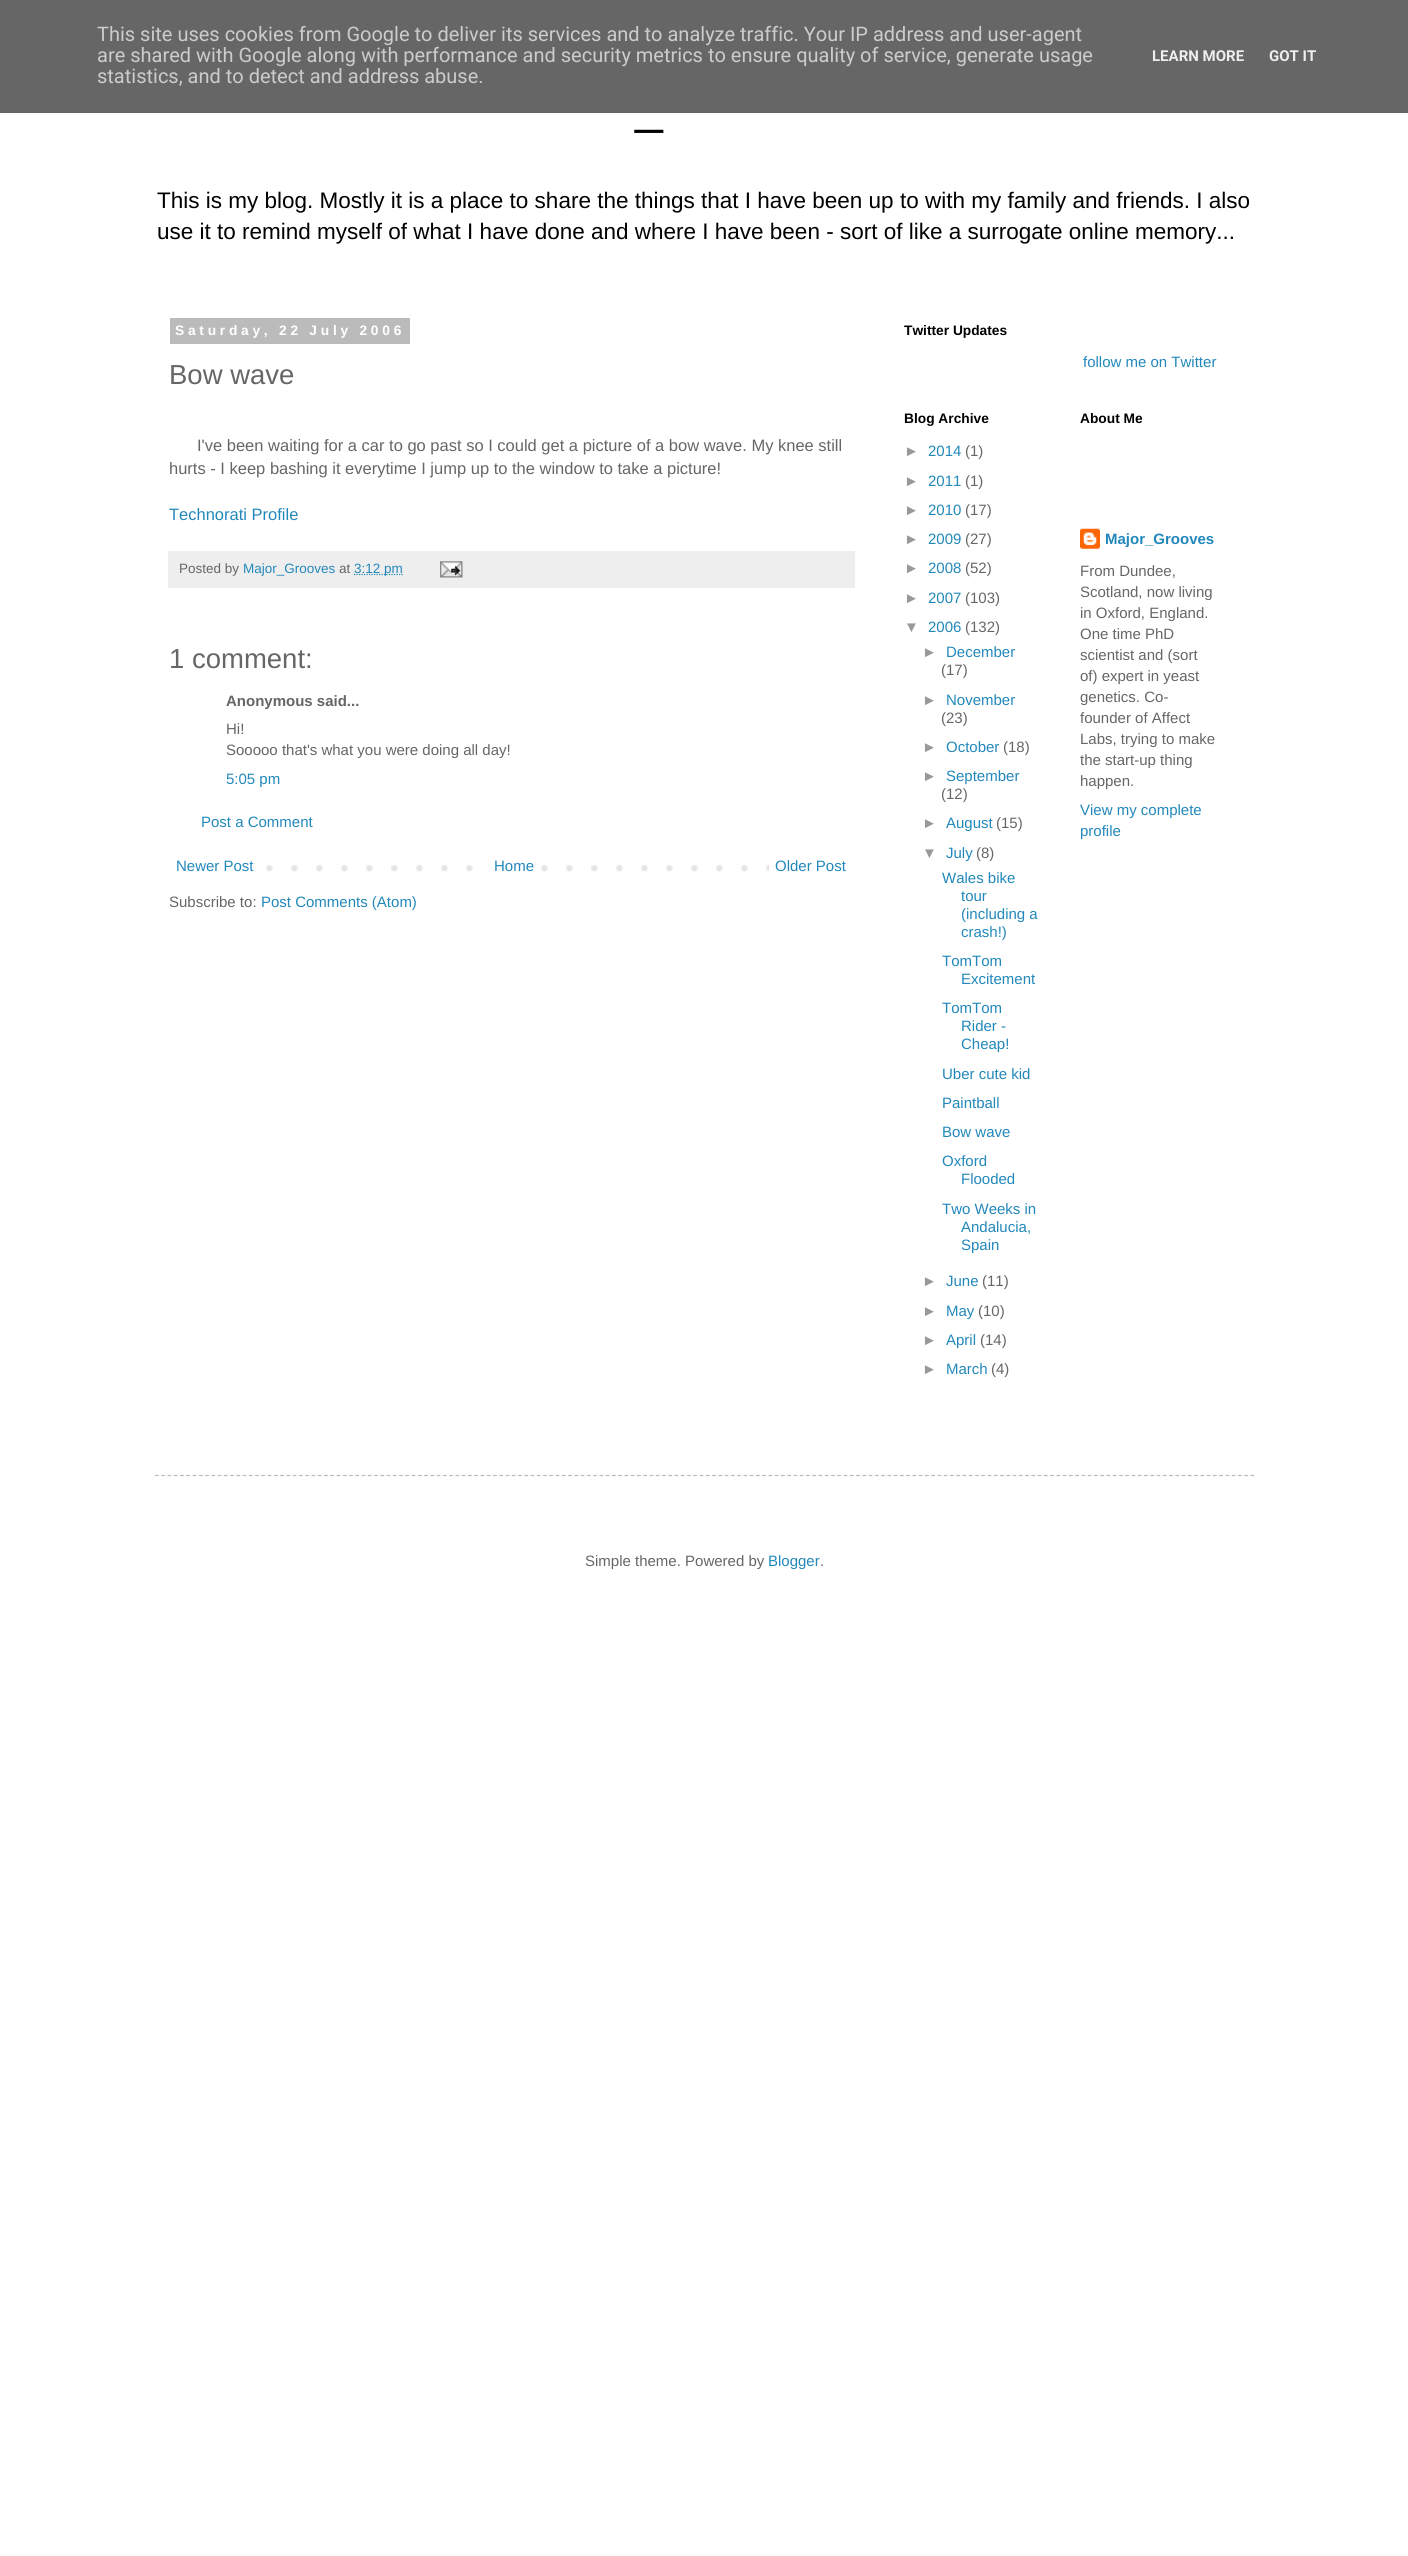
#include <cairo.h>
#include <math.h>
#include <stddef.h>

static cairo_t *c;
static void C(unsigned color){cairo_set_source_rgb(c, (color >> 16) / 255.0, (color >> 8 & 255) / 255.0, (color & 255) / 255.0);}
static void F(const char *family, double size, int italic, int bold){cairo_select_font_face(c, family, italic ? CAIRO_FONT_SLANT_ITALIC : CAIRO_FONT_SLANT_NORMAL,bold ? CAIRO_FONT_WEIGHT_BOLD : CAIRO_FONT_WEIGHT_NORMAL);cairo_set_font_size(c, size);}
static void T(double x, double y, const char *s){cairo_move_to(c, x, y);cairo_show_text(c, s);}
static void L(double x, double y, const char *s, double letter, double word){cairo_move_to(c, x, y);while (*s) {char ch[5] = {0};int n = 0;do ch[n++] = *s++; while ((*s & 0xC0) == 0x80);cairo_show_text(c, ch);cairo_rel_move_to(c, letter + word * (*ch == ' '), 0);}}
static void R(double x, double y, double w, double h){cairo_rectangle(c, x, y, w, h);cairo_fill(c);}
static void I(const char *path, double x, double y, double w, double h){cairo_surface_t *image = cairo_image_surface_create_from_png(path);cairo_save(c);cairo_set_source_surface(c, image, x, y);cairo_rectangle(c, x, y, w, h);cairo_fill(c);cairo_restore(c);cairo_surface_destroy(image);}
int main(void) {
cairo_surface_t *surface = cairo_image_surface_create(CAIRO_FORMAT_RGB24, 1408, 2556);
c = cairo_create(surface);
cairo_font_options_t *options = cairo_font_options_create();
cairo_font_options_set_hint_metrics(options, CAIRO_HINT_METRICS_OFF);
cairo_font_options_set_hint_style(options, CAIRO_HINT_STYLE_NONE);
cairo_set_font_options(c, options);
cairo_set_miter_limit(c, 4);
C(0xffffff);
cairo_paint(c);
C(0x666666);
R(0,0,1408,113);
F("Roboto",20,0,0);
C(0xcccccc);
T(97,41,"This site uses cookies from Google to deliver its services and to analyze traffic. Your IP address and user-agent");
T(97,62,"are shared with Google along with performance and security metrics to ensure quality of service, generate usage");
T(97,83,"statistics, and to detect and address abuse.");
F("Roboto",15,0,1);
C(0xeeeeee);
T(1152,61,"LEARN MORE");
T(1269,61,"GOT IT");
F("Liberation Sans",50,0,0);
C(0x000000);
T(635,123,"_");
F("Liberation Sans",22.5,0,0);
T(157,208,"This is my blog. Mostly it is a place to share the things that I have been up to with my family and friends. I also");
T(157,239,"use it to remind myself of what I have done and where I have been - sort of like a surrogate online memory...");
C(0xbbbbbb);
R(170,318,240,26);
F("Liberation Sans",13.75,0,1);
C(0xffffff);
L(175,335,"Saturday, 22 July 2006",3.75,0);
F("Liberation Sans",27.5,0,0);
C(0x666666);
T(169,384,"Bow wave");
F("Liberation Sans",16.5,0,0);
T(197,451,"I've been waiting for a car to go past so I could get a picture of a bow wave. My knee still");
T(169,474,"hurts - I keep bashing it everytime I jump up to the window to take a picture!");
C(0x2288bb);
T(169,520,"Technorati Profile");
C(0xeeeeee);
R(168,551,687,37);
F("Liberation Sans",13.5,0,0);
C(0x666666);
T(179,573,"Posted by");
C(0x2288bb);
T(243,573,"Major_Grooves");
C(0x666666);
T(339,573,"at");
cairo_new_path(c);
cairo_move_to(c,354,574.5);
cairo_line_to(c,403,574.5);
C(0x2288bb);
cairo_set_line_width(c,1.2);
cairo_set_dash(c,(double[]){1.25,1.25},2,0);
cairo_stroke(c);
T(354,573,"3:12 pm");
I("1.png",440,561,23,17);
F("Liberation Sans",27.5,0,0);
C(0x666666);
T(169,668,"1 comment:");
F("Liberation Sans",15,0,1);
T(226,706,"Anonymous said...");
F("Liberation Sans",15,0,0);
T(226,734,"Hi!");
T(226,755,"Sooooo that's what you were doing all day!");
C(0x2288bb);
T(226,784,"5:05 pm");
T(201,827,"Post a Comment");
I("2.png",266,865,503,7);
T(176,871,"Newer Post");
C(0xffffff);
R(491,865,32,7);
C(0x2288bb);
T(494,871,"Home");
T(775,871,"Older Post");
C(0x666666);
T(169,907,"Subscribe to:");
C(0x2288bb);
T(261,907,"Post Comments (Atom)");
F("Liberation Sans",13.75,0,1);
C(0x000000);
T(904,335,"Twitter Updates");
F("Liberation Sans",15,0,0);
C(0x2288bb);
T(1083,367,"follow me on Twitter");
F("Liberation Sans",13.75,0,1);
C(0x000000);
T(904,423,"Blog Archive");
F("Liberation Sans",15,0,0);
C(0x999999);
T(904,456,"►");
C(0x2288bb);
T(928,456,"2014");
C(0x666666);
T(965,456,"(1)");
C(0x999999);
T(904,486,"►");
C(0x2288bb);
T(928,486,"2011");
C(0x666666);
T(965,486,"(1)");
C(0x999999);
T(904,515,"►");
C(0x2288bb);
T(928,515,"2010");
C(0x666666);
T(965,515,"(17)");
C(0x999999);
T(904,544,"►");
C(0x2288bb);
T(928,544,"2009");
C(0x666666);
T(965,544,"(27)");
C(0x999999);
T(904,573,"►");
C(0x2288bb);
T(928,573,"2008");
C(0x666666);
T(965,573,"(52)");
C(0x999999);
T(904,603,"►");
C(0x2288bb);
T(928,603,"2007");
C(0x666666);
T(965,603,"(103)");
C(0x999999);
T(904,632,"▼");
C(0x2288bb);
T(928,632,"2006");
C(0x666666);
T(965,632,"(132)");
C(0x999999);
T(922,657,"►");
C(0x2288bb);
T(946,657,"December");
C(0x666666);
T(941,675,"(17)");
C(0x999999);
T(922,705,"►");
C(0x2288bb);
T(946,705,"November");
C(0x666666);
T(941,723,"(23)");
C(0x999999);
T(922,752,"►");
C(0x2288bb);
T(946,752,"October");
C(0x666666);
T(1003,752,"(18)");
C(0x999999);
T(922,781,"►");
C(0x2288bb);
T(946,781,"September");
C(0x666666);
T(941,799,"(12)");
C(0x999999);
T(922,828,"►");
C(0x2288bb);
T(946,828,"August");
C(0x666666);
T(996,828,"(15)");
C(0x999999);
T(922,858,"▼");
C(0x2288bb);
T(946,858,"July");
C(0x666666);
T(976,858,"(8)");
C(0x2288bb);
T(942,883,"Wales bike");
T(961,901,"tour");
T(961,919,"(including a");
T(961,937,"crash!)");
T(942,966,"TomTom");
T(961,984,"Excitement");
T(942,1013,"TomTom");
T(961,1031,"Rider -");
T(961,1049,"Cheap!");
T(942,1079,"Uber cute kid");
T(942,1108,"Paintball");
T(942,1137,"Bow wave");
T(942,1166,"Oxford");
T(961,1184,"Flooded");
T(942,1214,"Two Weeks in");
T(961,1232,"Andalucia,");
T(961,1250,"Spain");
C(0x999999);
T(922,1286,"►");
C(0x2288bb);
T(946,1286,"June");
C(0x666666);
T(982,1286,"(11)");
C(0x999999);
T(922,1316,"►");
C(0x2288bb);
T(946,1316,"May");
C(0x666666);
T(978,1316,"(10)");
C(0x999999);
T(922,1345,"►");
C(0x2288bb);
T(946,1345,"April");
C(0x666666);
T(980,1345,"(14)");
C(0x999999);
T(922,1374,"►");
C(0x2288bb);
T(946,1374,"March");
C(0x666666);
T(991,1374,"(4)");
F("Liberation Sans",13.75,0,1);
C(0x000000);
T(1080,423,"About Me");
I("3.png",1080,528,20,21);
F("Liberation Sans",15,0,1);
C(0x2288bb);
T(1105,544,"Major_Grooves");
F("Liberation Sans",15,0,0);
C(0x666666);
T(1080,576,"From Dundee,");
T(1080,597,"Scotland, now living");
T(1080,618,"in Oxford, England.");
T(1080,639,"One time PhD");
T(1080,660,"scientist and (sort");
T(1080,681,"of) expert in yeast");
T(1080,702,"genetics. Co-");
T(1080,723,"founder of Affect");
T(1080,744,"Labs, trying to make");
T(1080,765,"the start-up thing");
T(1080,786,"happen.");
C(0x2288bb);
T(1080,815,"View my complete");
T(1080,836,"profile");
cairo_new_path(c);
cairo_move_to(c,155,1475.5);
cairo_line_to(c,1255,1475.5);
C(0xbbbbbb);
cairo_set_dash(c,(double[]){3.75,2.51},2,0);
cairo_stroke(c);
C(0x666666);
T(585,1566,"Simple theme. Powered by");
C(0x2288bb);
T(768,1566,"Blogger");
C(0x666666);
T(820,1566,".");
cairo_surface_write_to_png(surface, "o.png");
cairo_font_options_destroy(options);
cairo_destroy(c);
cairo_surface_destroy(surface);
return 0;
}
